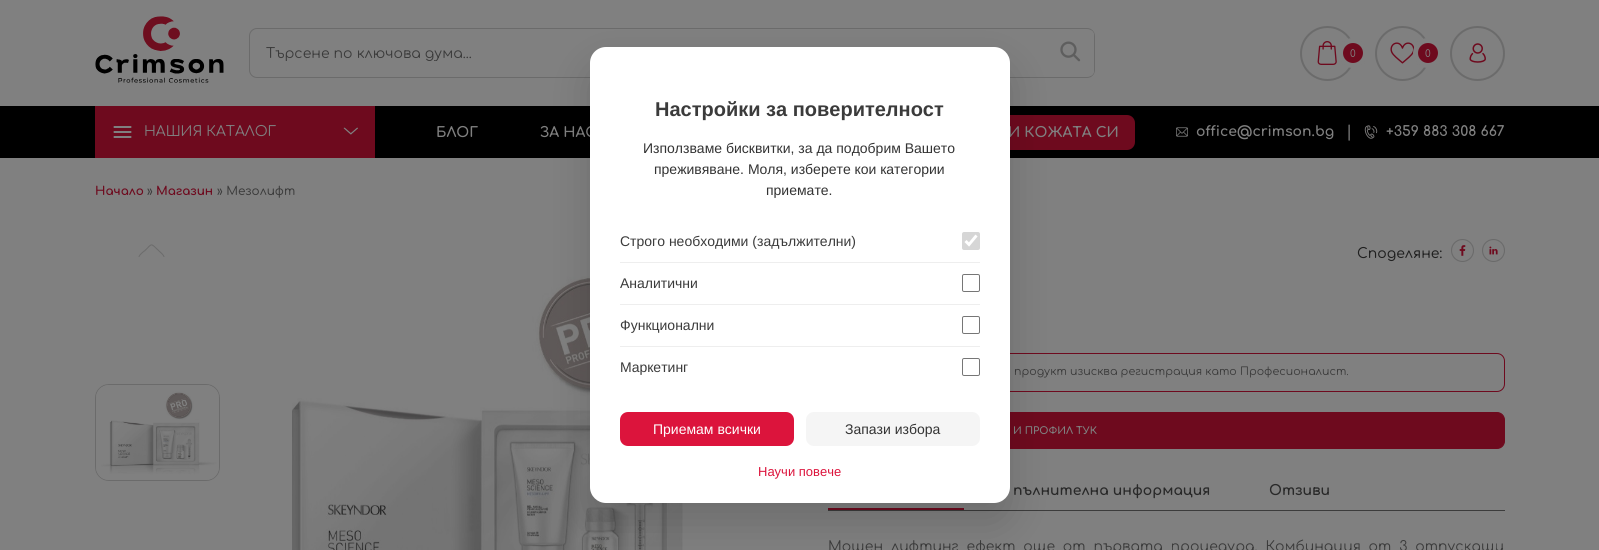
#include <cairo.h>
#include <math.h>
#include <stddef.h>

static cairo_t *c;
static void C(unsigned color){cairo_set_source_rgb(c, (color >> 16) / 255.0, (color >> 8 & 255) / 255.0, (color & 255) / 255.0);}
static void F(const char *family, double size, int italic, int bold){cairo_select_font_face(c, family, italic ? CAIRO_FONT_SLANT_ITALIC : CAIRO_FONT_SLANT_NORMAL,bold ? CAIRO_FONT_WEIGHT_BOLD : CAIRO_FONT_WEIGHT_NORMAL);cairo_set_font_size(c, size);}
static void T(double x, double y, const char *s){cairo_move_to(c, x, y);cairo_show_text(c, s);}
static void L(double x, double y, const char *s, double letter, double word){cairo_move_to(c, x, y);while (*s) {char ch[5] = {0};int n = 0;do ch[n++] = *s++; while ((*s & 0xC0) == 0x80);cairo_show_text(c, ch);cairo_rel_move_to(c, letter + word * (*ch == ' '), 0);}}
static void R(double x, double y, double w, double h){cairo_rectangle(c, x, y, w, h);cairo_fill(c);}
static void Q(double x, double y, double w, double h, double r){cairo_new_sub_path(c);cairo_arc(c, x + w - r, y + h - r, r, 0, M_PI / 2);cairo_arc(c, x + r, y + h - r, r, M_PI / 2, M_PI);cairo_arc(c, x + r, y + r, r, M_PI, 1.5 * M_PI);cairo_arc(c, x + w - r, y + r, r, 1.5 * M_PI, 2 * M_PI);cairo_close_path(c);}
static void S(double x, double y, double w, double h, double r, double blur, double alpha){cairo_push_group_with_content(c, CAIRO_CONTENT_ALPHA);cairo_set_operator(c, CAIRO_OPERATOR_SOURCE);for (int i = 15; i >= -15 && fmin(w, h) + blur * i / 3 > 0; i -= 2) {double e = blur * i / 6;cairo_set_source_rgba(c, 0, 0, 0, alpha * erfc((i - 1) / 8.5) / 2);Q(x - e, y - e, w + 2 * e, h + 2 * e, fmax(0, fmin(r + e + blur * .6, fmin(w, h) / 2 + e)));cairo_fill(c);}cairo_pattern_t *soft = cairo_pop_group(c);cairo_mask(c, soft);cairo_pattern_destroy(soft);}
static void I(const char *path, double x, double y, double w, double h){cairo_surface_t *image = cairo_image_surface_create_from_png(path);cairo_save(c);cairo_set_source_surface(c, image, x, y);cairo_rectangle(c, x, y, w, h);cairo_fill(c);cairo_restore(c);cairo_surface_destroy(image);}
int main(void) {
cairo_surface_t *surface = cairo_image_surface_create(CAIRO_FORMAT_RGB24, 1599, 550);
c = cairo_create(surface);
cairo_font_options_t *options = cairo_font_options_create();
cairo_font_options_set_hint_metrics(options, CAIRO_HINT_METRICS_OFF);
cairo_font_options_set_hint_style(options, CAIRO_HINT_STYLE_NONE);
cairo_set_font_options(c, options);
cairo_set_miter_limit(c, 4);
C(0x808080);
cairo_paint(c);
I("1.png",95,16,129,67);
Q(249.5,28.5,845,49,7.5);
C(0x6b6b6b);
cairo_set_line_width(c,1);
cairo_stroke(c);
cairo_save(c);
cairo_rectangle(c,266,46,812,15);
cairo_clip(c);
F("Comfortaa",14,0,0);
C(0x3b3b3b);
T(266,58,"Търсене по ключова дума...");
cairo_restore(c);
C(0x808080);
cairo_new_path(c);
cairo_move_to(c,1047,30);
cairo_line_to(c,1089,30);
cairo_curve_to(c,1092,30,1094,32,1094,35);
cairo_line_to(c,1094,71);
cairo_curve_to(c,1094,74,1092,76,1089,76);
cairo_line_to(c,1047,76);
cairo_close_path(c);
cairo_fill(c);
I("2.png",1060,41,21,21);
cairo_arc(c,1327.5,53.5,26.5,0,2 * M_PI);
C(0x6b6b6b);
cairo_set_line_width(c,2);
cairo_stroke(c);
I("3.png",1317,41,20,24);
C(0x6e0a1e);
cairo_arc(c,1353,53,12.5,0,2 * M_PI);
cairo_fill_preserve(c);
C(0x808080);
cairo_set_line_width(c,5);
cairo_stroke(c);
F("Comfortaa",10,0,0);
T(1350,57,"0");
cairo_new_path(c);
cairo_arc(c,1402.5,53.5,26.5,0,2 * M_PI);
C(0x6b6b6b);
cairo_set_line_width(c,2);
cairo_stroke(c);
I("4.png",1390,42,24,22);
C(0x6e0a1e);
cairo_arc(c,1428,53,12.5,0,2 * M_PI);
cairo_fill_preserve(c);
C(0x808080);
cairo_set_line_width(c,5);
cairo_stroke(c);
T(1425,57,"0");
cairo_new_path(c);
cairo_arc(c,1477.5,53.5,26.5,0,2 * M_PI);
C(0x6b6b6b);
cairo_set_line_width(c,2);
cairo_stroke(c);
I("5.png",1469,43,17,20);
C(0x000000);
R(0,106,1599,52);
C(0x6e0a1e);
R(95,106,280,52);
I("6.png",113,126,19,12);
F("Comfortaa",14,0,0);
C(0x808080);
T(144,136,"НАШИЯ КАТАЛОГ");
I("7.png",343,127,15,8);
F("Comfortaa",14,0,1);
T(436,137,"БЛОГ");
T(540,137,"ЗА НАС");
C(0x6e0a1e);
Q(935,115,200,35,8);
cairo_fill(c);
C(0x808080);
T(1008,137,"И КОЖАТА СИ");
I("8.png",1176,127,12,10);
T(1196,136,"office@crimson.bg");
F("Comfortaa",16,0,0);
T(1346,137,"|");
I("9.png",1364,125,14,14);
F("Comfortaa",14,0,1);
T(1386,136,"+359 883 308 667");
F("Comfortaa",12,0,1);
C(0x6e0a1e);
T(95,195,"Начало");
F("Comfortaa Medium",12,0,0);
C(0x3b3b3b);
T(147,195,"»");
F("Comfortaa",12,0,1);
C(0x6e0a1e);
T(156,195,"Магазин");
F("Comfortaa Medium",12,0,0);
C(0x3b3b3b);
T(217,195,"» Мезолифт");
cairo_new_path(c);
cairo_move_to(c,139,257);
cairo_curve_to(c,139,255,143.5,251.5,145,250.5);
cairo_curve_to(c,152.5,243,150.5,243,158.5,250.5);
cairo_curve_to(c,159.5,251.5,164,255,164,257);
C(0x6b6b6b);
cairo_set_line_width(c,1);
cairo_stroke(c);
Q(95.5,384.5,124,96,13.5);
cairo_stroke(c);
I("10.png",96,385,123,95);
I("11.png",292,276,391,274);
F("Comfortaa Medium",14,0,0);
C(0x202020);
T(1357,258,"Споделяне:");
I("12.png",1451,239,23,23);
I("13.png",1482,239,23,23);
Q(828.5,353.5,676,38,7.5);
C(0x6e0a1e);
cairo_stroke(c);
F("Comfortaa",11,0,0);
C(0x3b3b3b);
T(1014,375,"продукт изисква регистрация като Професионалист.");
C(0x6e0a1e);
Q(828.5,412.5,676,36,7.5);
cairo_fill_preserve(c);
cairo_stroke(c);
F("Comfortaa",10,0,1);
C(0x808080);
T(1013,434,"И ПРОФИЛ ТУК");
C(0x3c3c3c);
R(828,510,677,1);
F("Comfortaa",14,0,1);
C(0x292929);
T(1013,495,"пълнителна информация");
T(1269,495,"Отзиви");
C(0x6e0a1e);
R(828,508,136,2);
F("Comfortaa",14,0,0);
C(0x3b3b3b);
L(828,551,"Мощен лифтинг ефект още от първата процедура. Комбинация от 3 отпускащи",0,3.75);
C(0x000000);
S(590,67,420,456,16,20,.15);
C(0xffffff);
Q(590,47,420,456,16);
cairo_fill(c);
F("Liberation Sans",20,0,1);
C(0x3b3b3b);
T(655,116,"Настройки за поверителност");
F("Liberation Sans",14,0,0);
C(0x333333);
T(643,153,"Използваме бисквитки, за да подобрим Вашето");
T(654,174,"преживяване. Моля, изберете кои категории");
T(766,195,"приемате.");
C(0x3b3b3b);
T(620,246,"Строго необходими (задължителни)");
C(0xd6d6d6);
Q(962,232,18,18,2);
cairo_fill(c);
cairo_new_path(c);
cairo_move_to(c,965.5,241);
cairo_line_to(c,969,244.5);
cairo_line_to(c,976.5,235.5);
C(0xffffff);
cairo_set_line_width(c,2.9);
cairo_stroke(c);
C(0xeeeeee);
R(620,262,360,1);
C(0x3b3b3b);
T(620,288,"Аналитични");
Q(962.5,274.5,17,17,1.5);
C(0x767676);
cairo_set_line_width(c,1);
cairo_stroke(c);
C(0xeeeeee);
R(620,304,360,1);
C(0x3b3b3b);
T(620,330,"Функционални");
Q(962.5,316.5,17,17,1.5);
C(0x767676);
cairo_stroke(c);
C(0xeeeeee);
R(620,346,360,1);
C(0x3b3b3b);
T(620,372,"Маркетинг");
Q(962.5,358.5,17,17,1.5);
C(0x767676);
cairo_stroke(c);
C(0xdc143c);
Q(620,412,174,34,8);
cairo_fill(c);
C(0xffffff);
T(653,434,"Приемам всички");
C(0xf5f5f5);
Q(806,412,174,34,8);
cairo_fill(c);
C(0x333333);
T(845,434,"Запази избора");
F("Liberation Sans",13,0,0);
C(0xdc143c);
T(758,476,"Научи повече");
cairo_surface_write_to_png(surface, "o.png");
cairo_font_options_destroy(options);
cairo_destroy(c);
cairo_surface_destroy(surface);
return 0;
}
